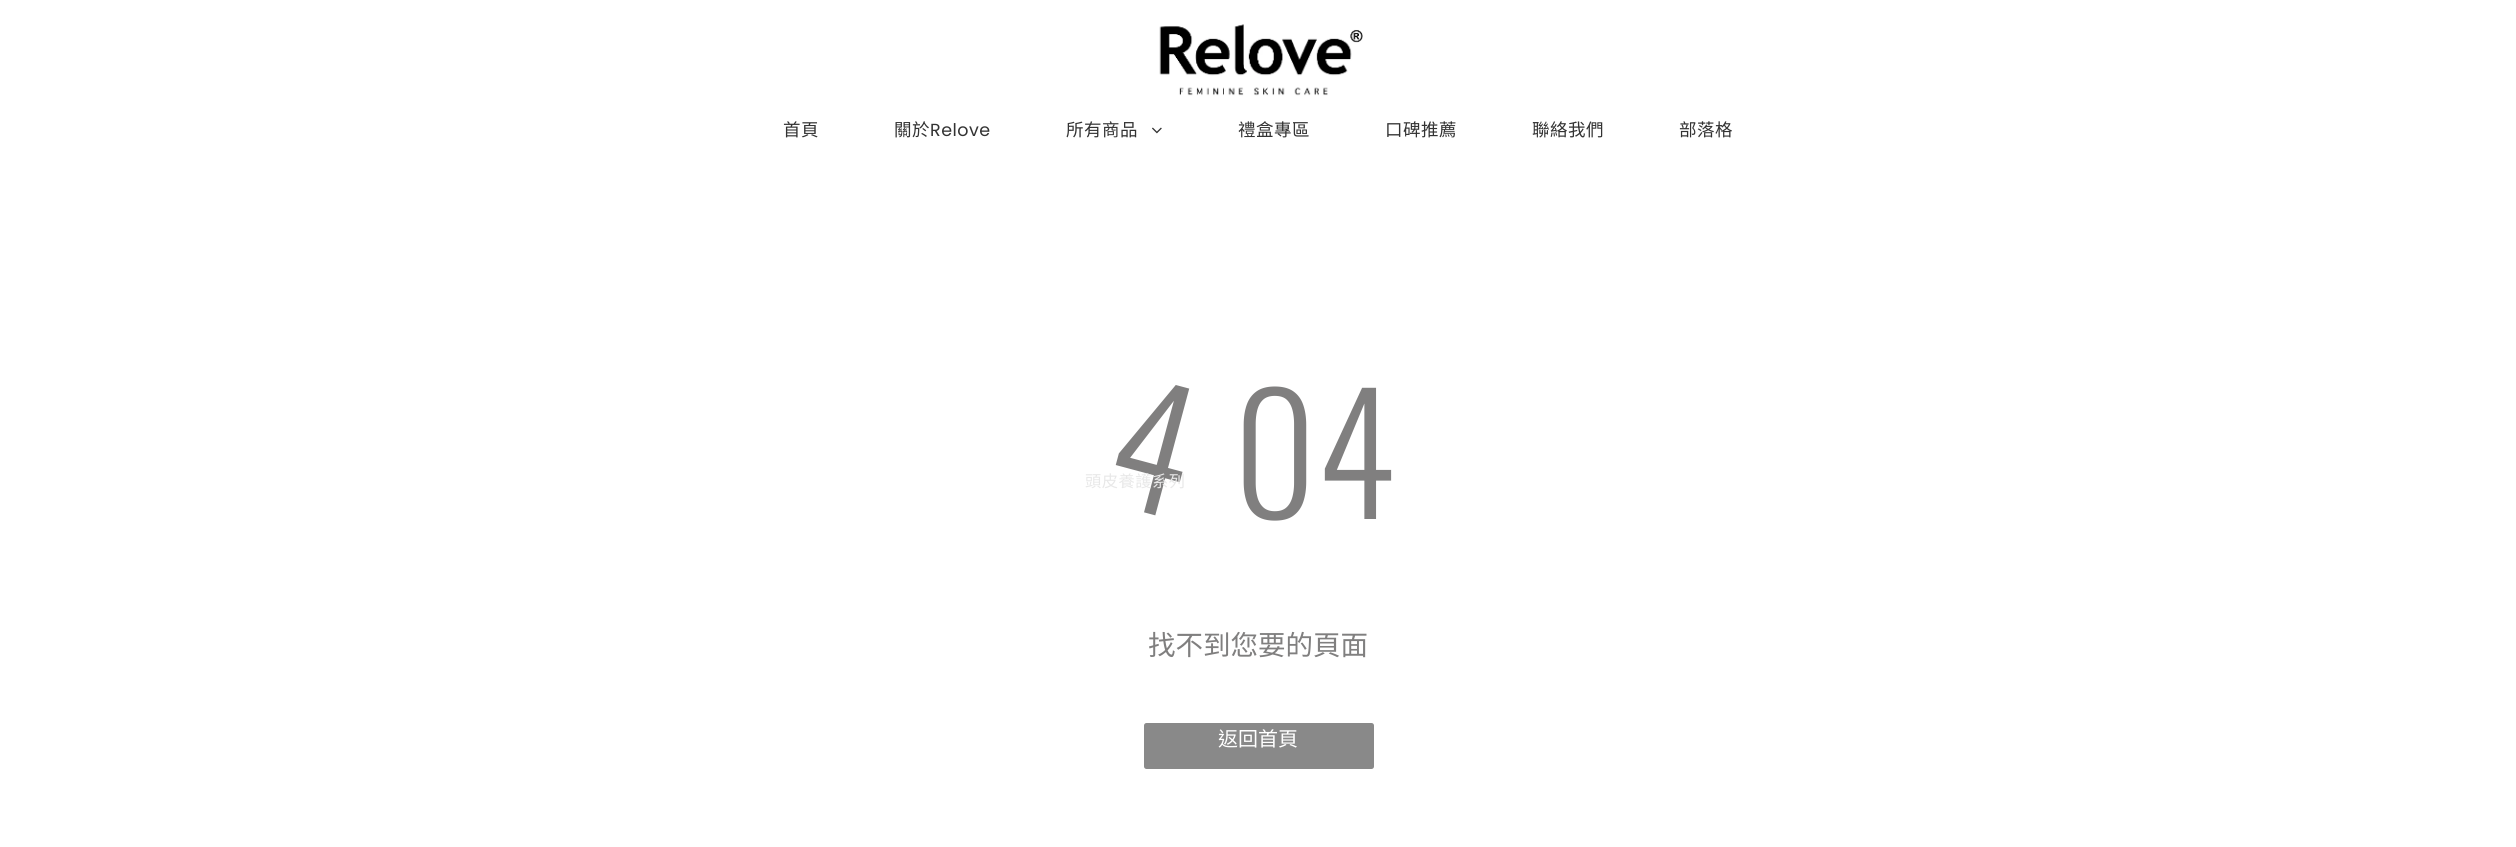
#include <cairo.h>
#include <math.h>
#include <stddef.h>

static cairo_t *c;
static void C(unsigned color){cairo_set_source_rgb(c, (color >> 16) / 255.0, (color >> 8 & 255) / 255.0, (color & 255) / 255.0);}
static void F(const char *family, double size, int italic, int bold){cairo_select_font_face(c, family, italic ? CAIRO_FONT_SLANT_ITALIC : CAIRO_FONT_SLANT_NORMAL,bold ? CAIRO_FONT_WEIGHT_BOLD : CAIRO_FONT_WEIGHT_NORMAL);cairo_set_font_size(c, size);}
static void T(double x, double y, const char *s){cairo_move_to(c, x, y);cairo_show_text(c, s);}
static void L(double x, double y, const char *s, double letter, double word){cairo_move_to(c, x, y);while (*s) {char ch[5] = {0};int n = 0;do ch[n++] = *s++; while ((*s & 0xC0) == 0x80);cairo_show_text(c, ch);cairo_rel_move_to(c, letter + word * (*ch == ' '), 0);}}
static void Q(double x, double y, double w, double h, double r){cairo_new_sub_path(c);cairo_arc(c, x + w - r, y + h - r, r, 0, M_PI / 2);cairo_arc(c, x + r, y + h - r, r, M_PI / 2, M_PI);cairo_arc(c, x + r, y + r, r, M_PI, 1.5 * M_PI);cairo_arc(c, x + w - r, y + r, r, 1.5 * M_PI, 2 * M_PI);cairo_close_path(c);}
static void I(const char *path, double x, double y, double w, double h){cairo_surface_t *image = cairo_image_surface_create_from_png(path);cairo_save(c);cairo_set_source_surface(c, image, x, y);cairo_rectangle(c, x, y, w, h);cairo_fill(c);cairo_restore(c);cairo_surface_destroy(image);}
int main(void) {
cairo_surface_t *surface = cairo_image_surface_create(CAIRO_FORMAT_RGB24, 2516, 847);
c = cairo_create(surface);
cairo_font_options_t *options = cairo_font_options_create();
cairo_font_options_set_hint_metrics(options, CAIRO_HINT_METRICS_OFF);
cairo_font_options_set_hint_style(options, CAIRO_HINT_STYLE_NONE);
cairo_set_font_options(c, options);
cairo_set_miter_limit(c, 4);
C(0xffffff);
cairo_paint(c);
I("1.png",1159,24,204,72);
F("Noto Sans CJK TC",17.5,0,0);
C(0x333333);
L(783,136,"首頁",.5,0);
L(894,136,"關於",.5,0);
F("Poppins",17.5,0,0);
L(930,136,"Relove",.5,0);
F("Noto Sans CJK TC",17.5,0,0);
L(1066,136,"所有商品",.5,0);
I("2.png",1152,127,10,7);
F("Oswald Light",162,0,0);
C(0x807f7f);
cairo_save(c);
cairo_translate(c,1098,500);
cairo_rotate(c,15 * M_PI / 180);
T(0,0,"4");
cairo_restore(c);
F("Noto Sans CJK TC",16.25,0,0);
C(0xe8e8e8);
L(1085,487,"頭皮養護系列",.5,0);
F("Noto Sans CJK TC",17.5,0,0);
C(0x333333);
L(1238,136,"禮盒專區",.5,0);
L(1385,136,"口碑推薦",.5,0);
L(1532,136,"聯絡我們",.5,0);
L(1679,136,"部落格",.5,0);
F("Oswald Light",162,0,0);
C(0x807f7f);
T(1233,519,"04");
F("Noto Sans CJK TC",27.5,0,0);
T(1148,655,"找不到您要的頁面");
C(0x898989);
Q(1144,723,230,46,2.5);
cairo_fill(c);
F("Noto Sans CJK TC",20,0,0);
C(0xffffff);
T(1218,746,"返回首頁");
cairo_surface_write_to_png(surface, "o.png");
cairo_font_options_destroy(options);
cairo_destroy(c);
cairo_surface_destroy(surface);
return 0;
}
